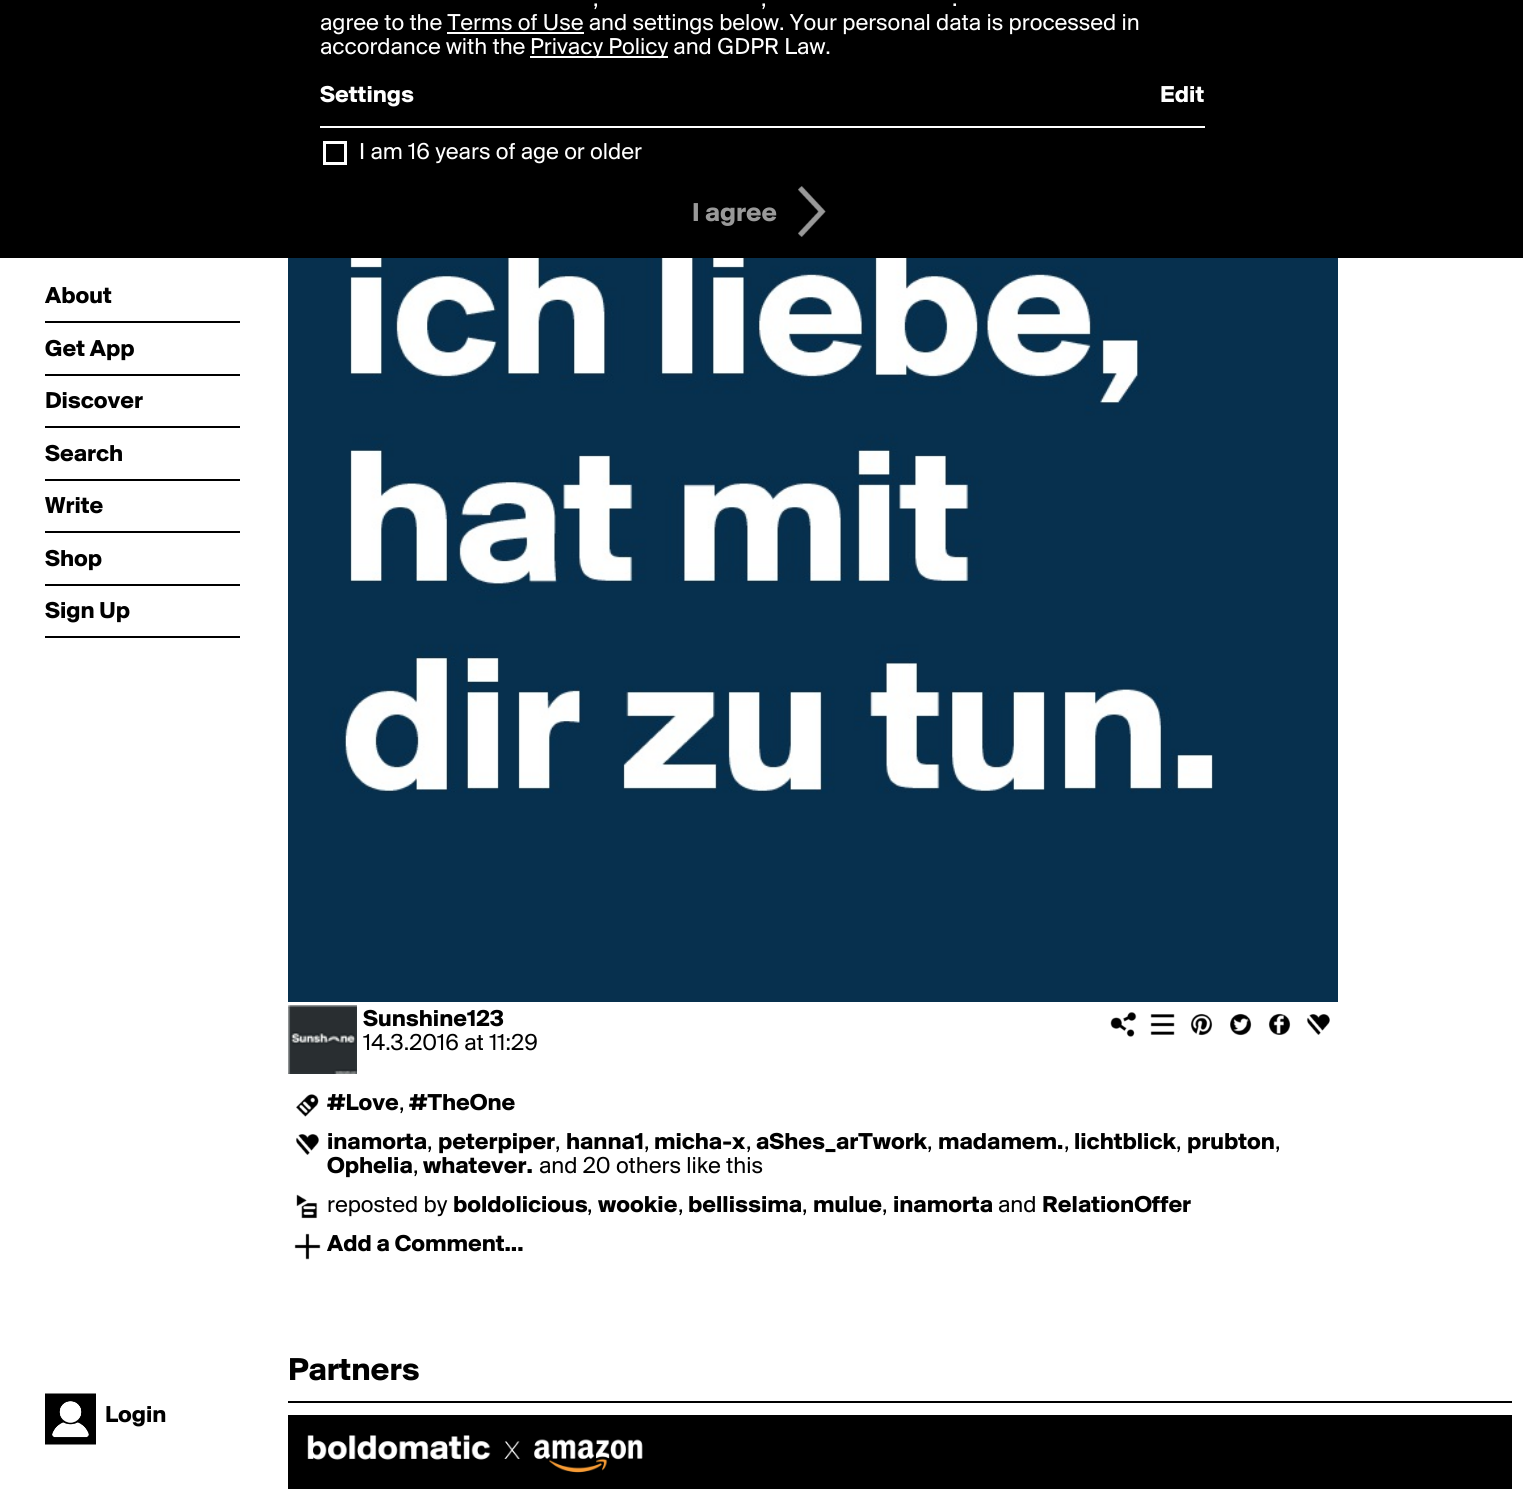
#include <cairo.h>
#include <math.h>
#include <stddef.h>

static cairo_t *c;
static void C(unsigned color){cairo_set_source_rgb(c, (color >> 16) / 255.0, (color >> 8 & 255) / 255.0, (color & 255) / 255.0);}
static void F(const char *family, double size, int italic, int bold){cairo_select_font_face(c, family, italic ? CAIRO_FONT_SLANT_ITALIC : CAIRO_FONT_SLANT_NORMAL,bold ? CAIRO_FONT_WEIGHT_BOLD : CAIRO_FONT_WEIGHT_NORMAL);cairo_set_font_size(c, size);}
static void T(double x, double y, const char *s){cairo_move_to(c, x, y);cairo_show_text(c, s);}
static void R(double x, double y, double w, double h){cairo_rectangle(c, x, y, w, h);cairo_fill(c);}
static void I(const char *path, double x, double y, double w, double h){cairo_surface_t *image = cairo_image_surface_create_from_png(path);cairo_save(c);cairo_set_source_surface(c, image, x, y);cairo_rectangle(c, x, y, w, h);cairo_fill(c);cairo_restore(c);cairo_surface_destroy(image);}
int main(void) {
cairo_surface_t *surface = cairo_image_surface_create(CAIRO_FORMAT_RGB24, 1523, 1489);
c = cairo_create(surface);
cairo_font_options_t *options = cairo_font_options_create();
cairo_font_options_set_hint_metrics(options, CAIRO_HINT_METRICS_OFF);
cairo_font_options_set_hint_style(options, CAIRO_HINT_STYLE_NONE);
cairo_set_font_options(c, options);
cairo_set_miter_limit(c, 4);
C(0xffffff);
cairo_paint(c);
C(0x000000);
R(0,0,1523,258);
F("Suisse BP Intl",24,0,0);
C(0xffffff);
T(593,6,",");
T(761,6,",");
T(952,6,".");
T(320,30,"agree to the Terms of Use and settings below. Your personal data is processed in");
R(447,32,137,2);
T(320,54,"accordance with the");
R(530,56,138,2);
T(530,54,"Privacy Policy and GDPR Law.");
F("Suisse BP Intl",24,0,1);
T(320,102,"Settings");
T(1160,102,"Edit");
R(320,126,885,2);
cairo_rectangle(c,324.5,142.5,21,21);
cairo_set_line_width(c,3);
cairo_stroke(c);
F("Suisse BP Intl",24,0,0);
T(359,159,"I am 16 years of age or older");
F("Suisse BP Intl",27,0,1);
C(0x999999);
T(692,221,"I agree");
I("1.png",798,186,28,51);
C(0x000000);
R(45,321,195,2);
F("Suisse BP Intl",24,0,1);
T(45,303,"About");
R(45,374,195,2);
T(45,356,"Get App");
R(45,426,195,2);
T(45,408,"Discover");
R(45,479,195,2);
T(45,461,"Search");
R(45,531,195,2);
T(45,513,"Write");
R(45,584,195,2);
T(45,566,"Shop");
R(45,636,195,2);
T(45,618,"Sign Up");
I("2.png",45,1393,51,52);
T(105,1422,"Login");
I("3.png",288,258,1050,744);
I("4.png",288,1005,69,69);
T(363,1026,"Sunshine123");
F("Suisse BP Intl",24,0,0);
T(363,1050,"14.3.2016 at 11:29");
I("5.png",1110,1012,27,25);
I("6.png",1150,1014,25,21);
I("7.png",1190,1013,23,23);
I("8.png",1230,1013,22,23);
I("9.png",1268,1013,23,22);
I("10.png",1306,1014,24,21);
I("11.png",296,1094,23,23);
F("Suisse BP Intl",24,0,1);
T(327,1110,"#Love");
F("Suisse BP Intl",24,0,0);
T(399,1110,",");
F("Suisse BP Intl",24,0,1);
T(409,1110,"#TheOne");
I("12.png",296,1134,23,21);
T(327,1149,"inamorta");
F("Suisse BP Intl",24,0,0);
T(427,1149,",");
F("Suisse BP Intl",24,0,1);
T(438,1149,"peterpiper");
F("Suisse BP Intl",24,0,0);
T(555,1149,",");
F("Suisse BP Intl",24,0,1);
T(566,1149,"hanna1");
F("Suisse BP Intl",24,0,0);
T(644,1149,",");
F("Suisse BP Intl",24,0,1);
T(654,1149,"micha-x");
F("Suisse BP Intl",24,0,0);
T(746,1149,",");
F("Suisse BP Intl",24,0,1);
T(756,1149,"aShes_arTwork");
F("Suisse BP Intl",24,0,0);
T(927,1149,",");
F("Suisse BP Intl",24,0,1);
T(938,1149,"madamem.");
F("Suisse BP Intl",24,0,0);
T(1064,1149,",");
F("Suisse BP Intl",24,0,1);
T(1074,1149,"lichtblick");
F("Suisse BP Intl",24,0,0);
T(1176,1149,",");
F("Suisse BP Intl",24,0,1);
T(1187,1149,"prubton");
F("Suisse BP Intl",24,0,0);
T(1275,1149,",");
F("Suisse BP Intl",24,0,1);
T(327,1173,"Ophelia");
F("Suisse BP Intl",24,0,0);
T(413,1173,",");
F("Suisse BP Intl",24,0,1);
T(423,1173,"whatever.");
F("Suisse BP Intl",24,0,0);
T(539,1173,"and 20 others like this");
I("13.png",296,1194,22,25);
T(327,1212,"reposted by");
F("Suisse BP Intl",24,0,1);
T(453,1212,"boldolicious");
F("Suisse BP Intl",24,0,0);
T(587,1212,",");
F("Suisse BP Intl",24,0,1);
T(598,1212,"wookie");
F("Suisse BP Intl",24,0,0);
T(678,1212,",");
F("Suisse BP Intl",24,0,1);
T(688,1212,"bellissima");
F("Suisse BP Intl",24,0,0);
T(802,1212,",");
F("Suisse BP Intl",24,0,1);
T(813,1212,"mulue");
F("Suisse BP Intl",24,0,0);
T(882,1212,",");
F("Suisse BP Intl",24,0,1);
T(893,1212,"inamorta");
F("Suisse BP Intl",24,0,0);
T(998,1212,"and");
F("Suisse BP Intl",24,0,1);
T(1042,1212,"RelationOffer");
I("14.png",294,1233,27,27);
T(327,1251,"Add a Comment...");
R(288,1401,1224,2);
F("Suisse BP Intl",33,0,1);
T(288,1380,"Partners");
R(288,1415,1224,74);
I("15.png",307,1435,336,38);
cairo_surface_write_to_png(surface, "o.png");
cairo_font_options_destroy(options);
cairo_destroy(c);
cairo_surface_destroy(surface);
return 0;
}
